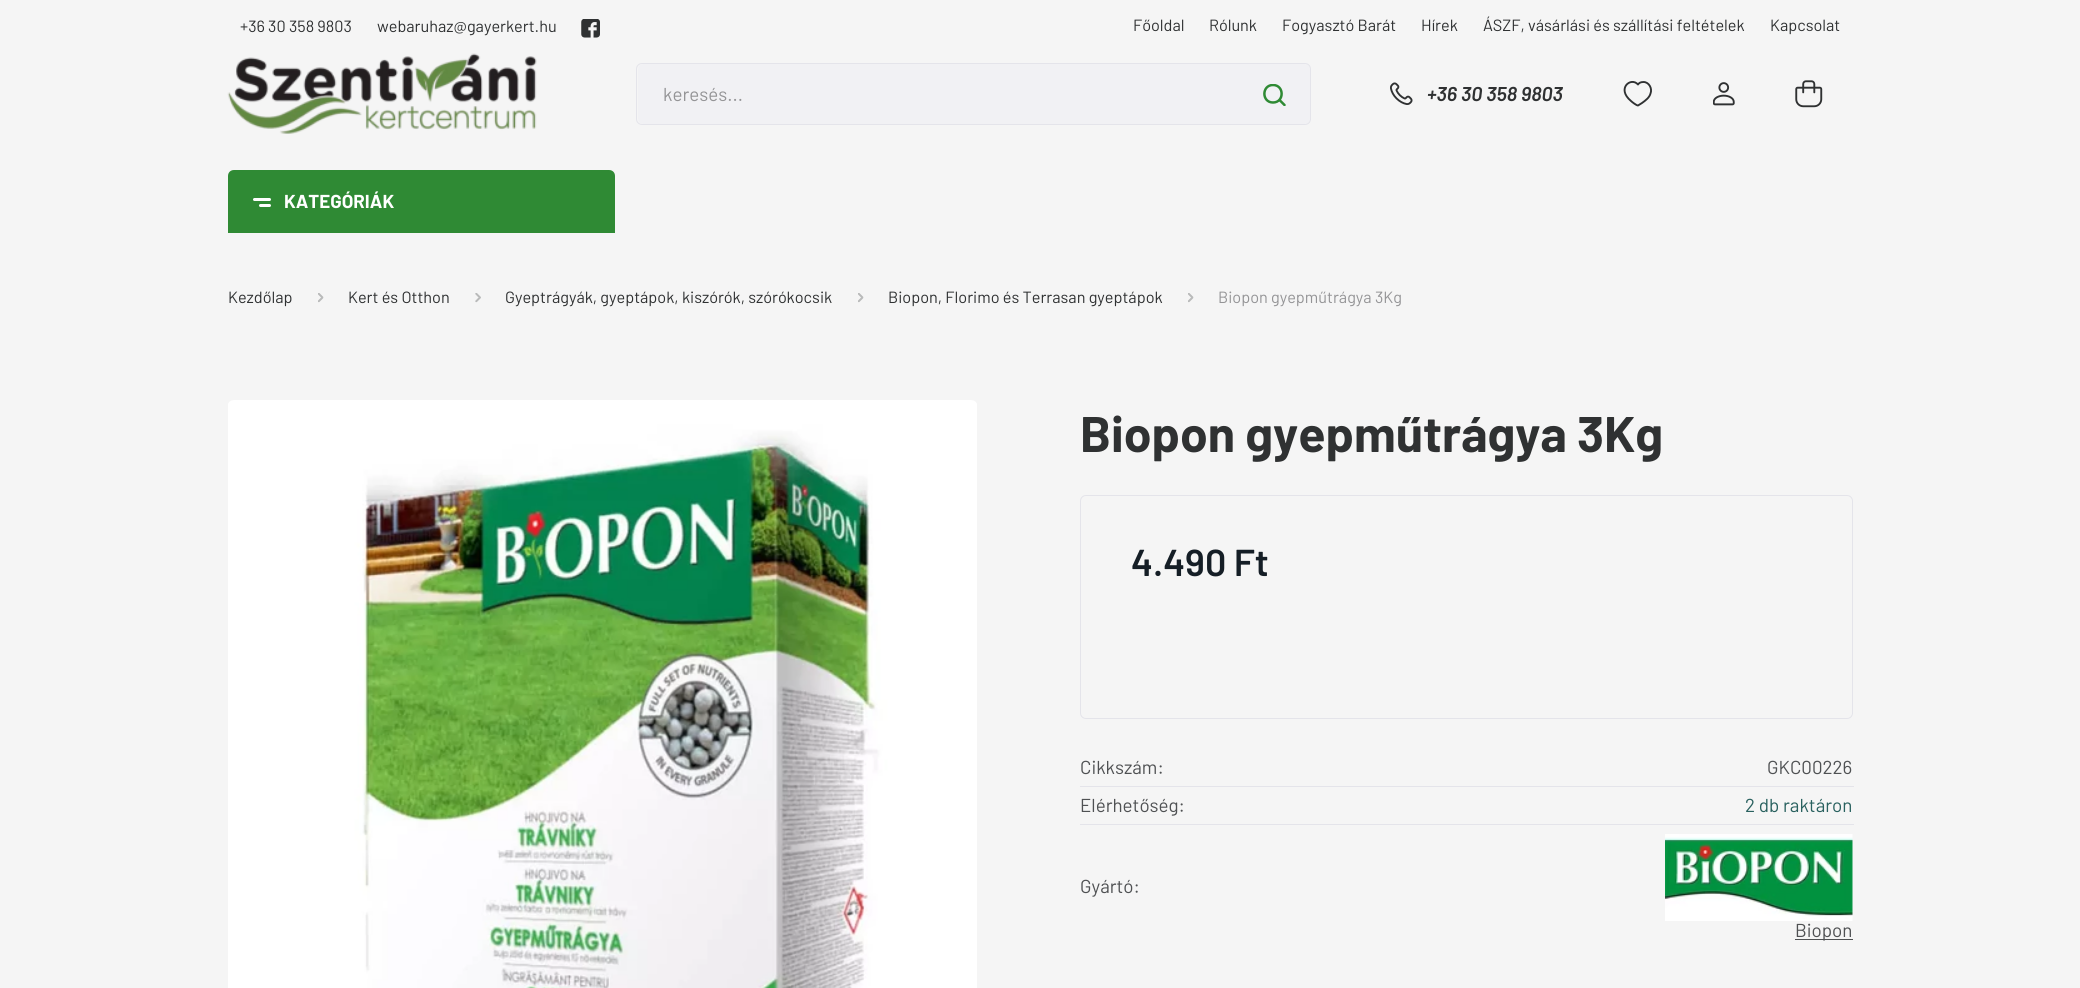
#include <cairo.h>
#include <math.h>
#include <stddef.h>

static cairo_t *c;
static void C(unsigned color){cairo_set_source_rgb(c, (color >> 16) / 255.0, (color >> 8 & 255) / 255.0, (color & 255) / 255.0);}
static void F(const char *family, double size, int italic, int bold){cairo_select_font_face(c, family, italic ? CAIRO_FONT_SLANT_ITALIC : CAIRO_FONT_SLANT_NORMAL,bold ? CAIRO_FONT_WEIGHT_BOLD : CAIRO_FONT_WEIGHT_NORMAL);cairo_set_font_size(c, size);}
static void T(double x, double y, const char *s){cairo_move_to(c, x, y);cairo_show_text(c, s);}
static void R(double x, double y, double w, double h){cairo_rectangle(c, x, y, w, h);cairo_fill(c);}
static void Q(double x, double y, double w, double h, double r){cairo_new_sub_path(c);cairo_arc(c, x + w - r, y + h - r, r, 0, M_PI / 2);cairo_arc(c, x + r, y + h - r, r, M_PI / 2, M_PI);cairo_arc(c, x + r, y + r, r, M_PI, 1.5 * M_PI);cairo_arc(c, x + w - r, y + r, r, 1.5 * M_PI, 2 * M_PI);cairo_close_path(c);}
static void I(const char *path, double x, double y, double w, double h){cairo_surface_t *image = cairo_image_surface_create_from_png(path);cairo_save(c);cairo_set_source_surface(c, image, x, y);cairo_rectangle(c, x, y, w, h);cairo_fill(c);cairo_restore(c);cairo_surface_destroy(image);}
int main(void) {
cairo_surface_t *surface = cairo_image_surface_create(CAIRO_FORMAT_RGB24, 2080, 988);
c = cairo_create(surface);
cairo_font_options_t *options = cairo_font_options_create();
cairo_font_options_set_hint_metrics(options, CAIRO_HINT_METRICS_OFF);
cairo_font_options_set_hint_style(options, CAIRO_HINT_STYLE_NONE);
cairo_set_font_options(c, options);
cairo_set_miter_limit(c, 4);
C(0xf5f5f5);
cairo_paint(c);
F("Barlow",16.25,0,0);
C(0x2f3132);
T(240,32,"+36 30 358 9803");
T(377,32,"webaruhaz@gayerkert.hu");
I("1.png",581,19,19,19);
T(1133,31,"Főoldal");
T(1209,31,"Rólunk");
T(1282,31,"Fogyasztó Barát");
T(1421,31,"Hírek");
T(1483,31,"ÁSZF, vásárlási és szállítási feltételek");
T(1770,31,"Kapcsolat");
I("2.png",227,53,310,81);
C(0xf1f1f4);
Q(638,64,672,60,5);
cairo_fill(c);
Q(636.5,63.5,674,61,5.5);
C(0xe4e4ea);
cairo_set_line_width(c,1);
cairo_stroke(c);
F("Barlow",18.75,0,0);
C(0x949496);
T(663,101,"keresés...");
cairo_save(c);
cairo_rectangle(c,1263,84,23,22);
cairo_clip(c);
cairo_new_path(c);
cairo_move_to(c,1284.5,105);
cairo_line_to(c,1279.5,100);
cairo_move_to(c,1273,102.5);
cairo_curve_to(c,1261.5,102.5,1261.5,85,1273,85);
cairo_curve_to(c,1284.5,85,1284.5,102.5,1273,102.5);
cairo_close_path(c);
C(0x2f8a34);
cairo_set_line_width(c,2.5);
cairo_set_line_cap(c,CAIRO_LINE_CAP_ROUND);
cairo_set_line_join(c,CAIRO_LINE_JOIN_ROUND);
cairo_stroke(c);
cairo_restore(c);
I("3.png",1390,82,23,23);
F("Barlow SemiBold",20,1,0);
C(0x2f3132);
T(1427,101,"+36 30 358 9803");
cairo_new_path(c);
cairo_move_to(c,1643.5,82);
cairo_curve_to(c,1649,82,1652.5,88.5,1650.5,93.5);
cairo_curve_to(c,1649.5,97.5,1645.5,100.5,1642,103);
cairo_line_to(c,1638,105.5);
cairo_curve_to(c,1636.5,105.5,1632,102,1631,101);
cairo_curve_to(c,1616,88.5,1631,76.5,1638,84.5);
cairo_curve_to(c,1639,83,1640.5,82,1643.5,82);
cairo_close_path(c);
cairo_set_line_width(c,1.9);
cairo_set_line_cap(c,CAIRO_LINE_CAP_ROUND);
cairo_set_line_join(c,CAIRO_LINE_JOIN_ROUND);
cairo_stroke(c);
I("4.png",1713,82,22,24);
I("5.png",1795,80,28,28);
C(0x2f8a34);
cairo_new_path(c);
cairo_move_to(c,234,170);
cairo_line_to(c,609,170);
cairo_curve_to(c,612.5,170,615,172.5,615,176);
cairo_line_to(c,615,233);
cairo_line_to(c,228,233);
cairo_line_to(c,228,176);
cairo_curve_to(c,228,172.5,230.5,170,234,170);
cairo_close_path(c);
cairo_fill(c);
C(0xffffff);
Q(253,198,18,3,1.5);
cairo_fill(c);
Q(259,204,12,3,1.5);
cairo_fill(c);
F("Barlow",18.75,0,1);
T(284,208,"KATEGÓRIÁK");
F("Barlow",16.25,0,0);
C(0x2f3132);
T(228,303,"Kezdőlap");
I("6.png",318,293,6,10);
T(348,303,"Kert és Otthon");
I("7.png",475,293,6,10);
T(505,303,"Gyeptrágyák, gyeptápok, kiszórók, szórókocsik");
I("6.png",858,293,6,10);
T(888,303,"Biopon, Florimo és Terrasan gyeptápok");
I("6.png",1188,293,6,10);
C(0x949496);
T(1218,303,"Biopon gyepműtrágya 3Kg");
I("8.png",228,400,749,588);
F("Barlow",50,0,1);
C(0x2f3132);
T(1080,452,"Biopon gyepműtrágya 3Kg");
Q(1080.5,495.5,772,223,5.5);
C(0xe4e4ea);
cairo_set_line_width(c,1);
cairo_set_line_cap(c,CAIRO_LINE_CAP_BUTT);
cairo_set_line_join(c,CAIRO_LINE_JOIN_MITER);
cairo_stroke(c);
F("Barlow SemiBold",37.5,0,0);
C(0x151e26);
T(1131,576,"4.490 Ft");
F("Barlow",18.75,0,0);
C(0x4f5153);
T(1080,774,"Cikkszám:");
T(1767,774,"GKC00226");
T(1080,812,"Elérhetőség:");
C(0xe4e4ea);
R(1080,786,774,1);
C(0x29615f);
T(1745,812,"2 db raktáron");
C(0x4f5153);
T(1080,893,"Gyártó:");
C(0xe4e4ea);
R(1080,824,774,1);
I("9.png",1665,834,188,87);
C(0x4f5153);
R(1795,939,58,1);
T(1795,937,"Biopon");
cairo_surface_write_to_png(surface, "o.png");
cairo_font_options_destroy(options);
cairo_destroy(c);
cairo_surface_destroy(surface);
return 0;
}
